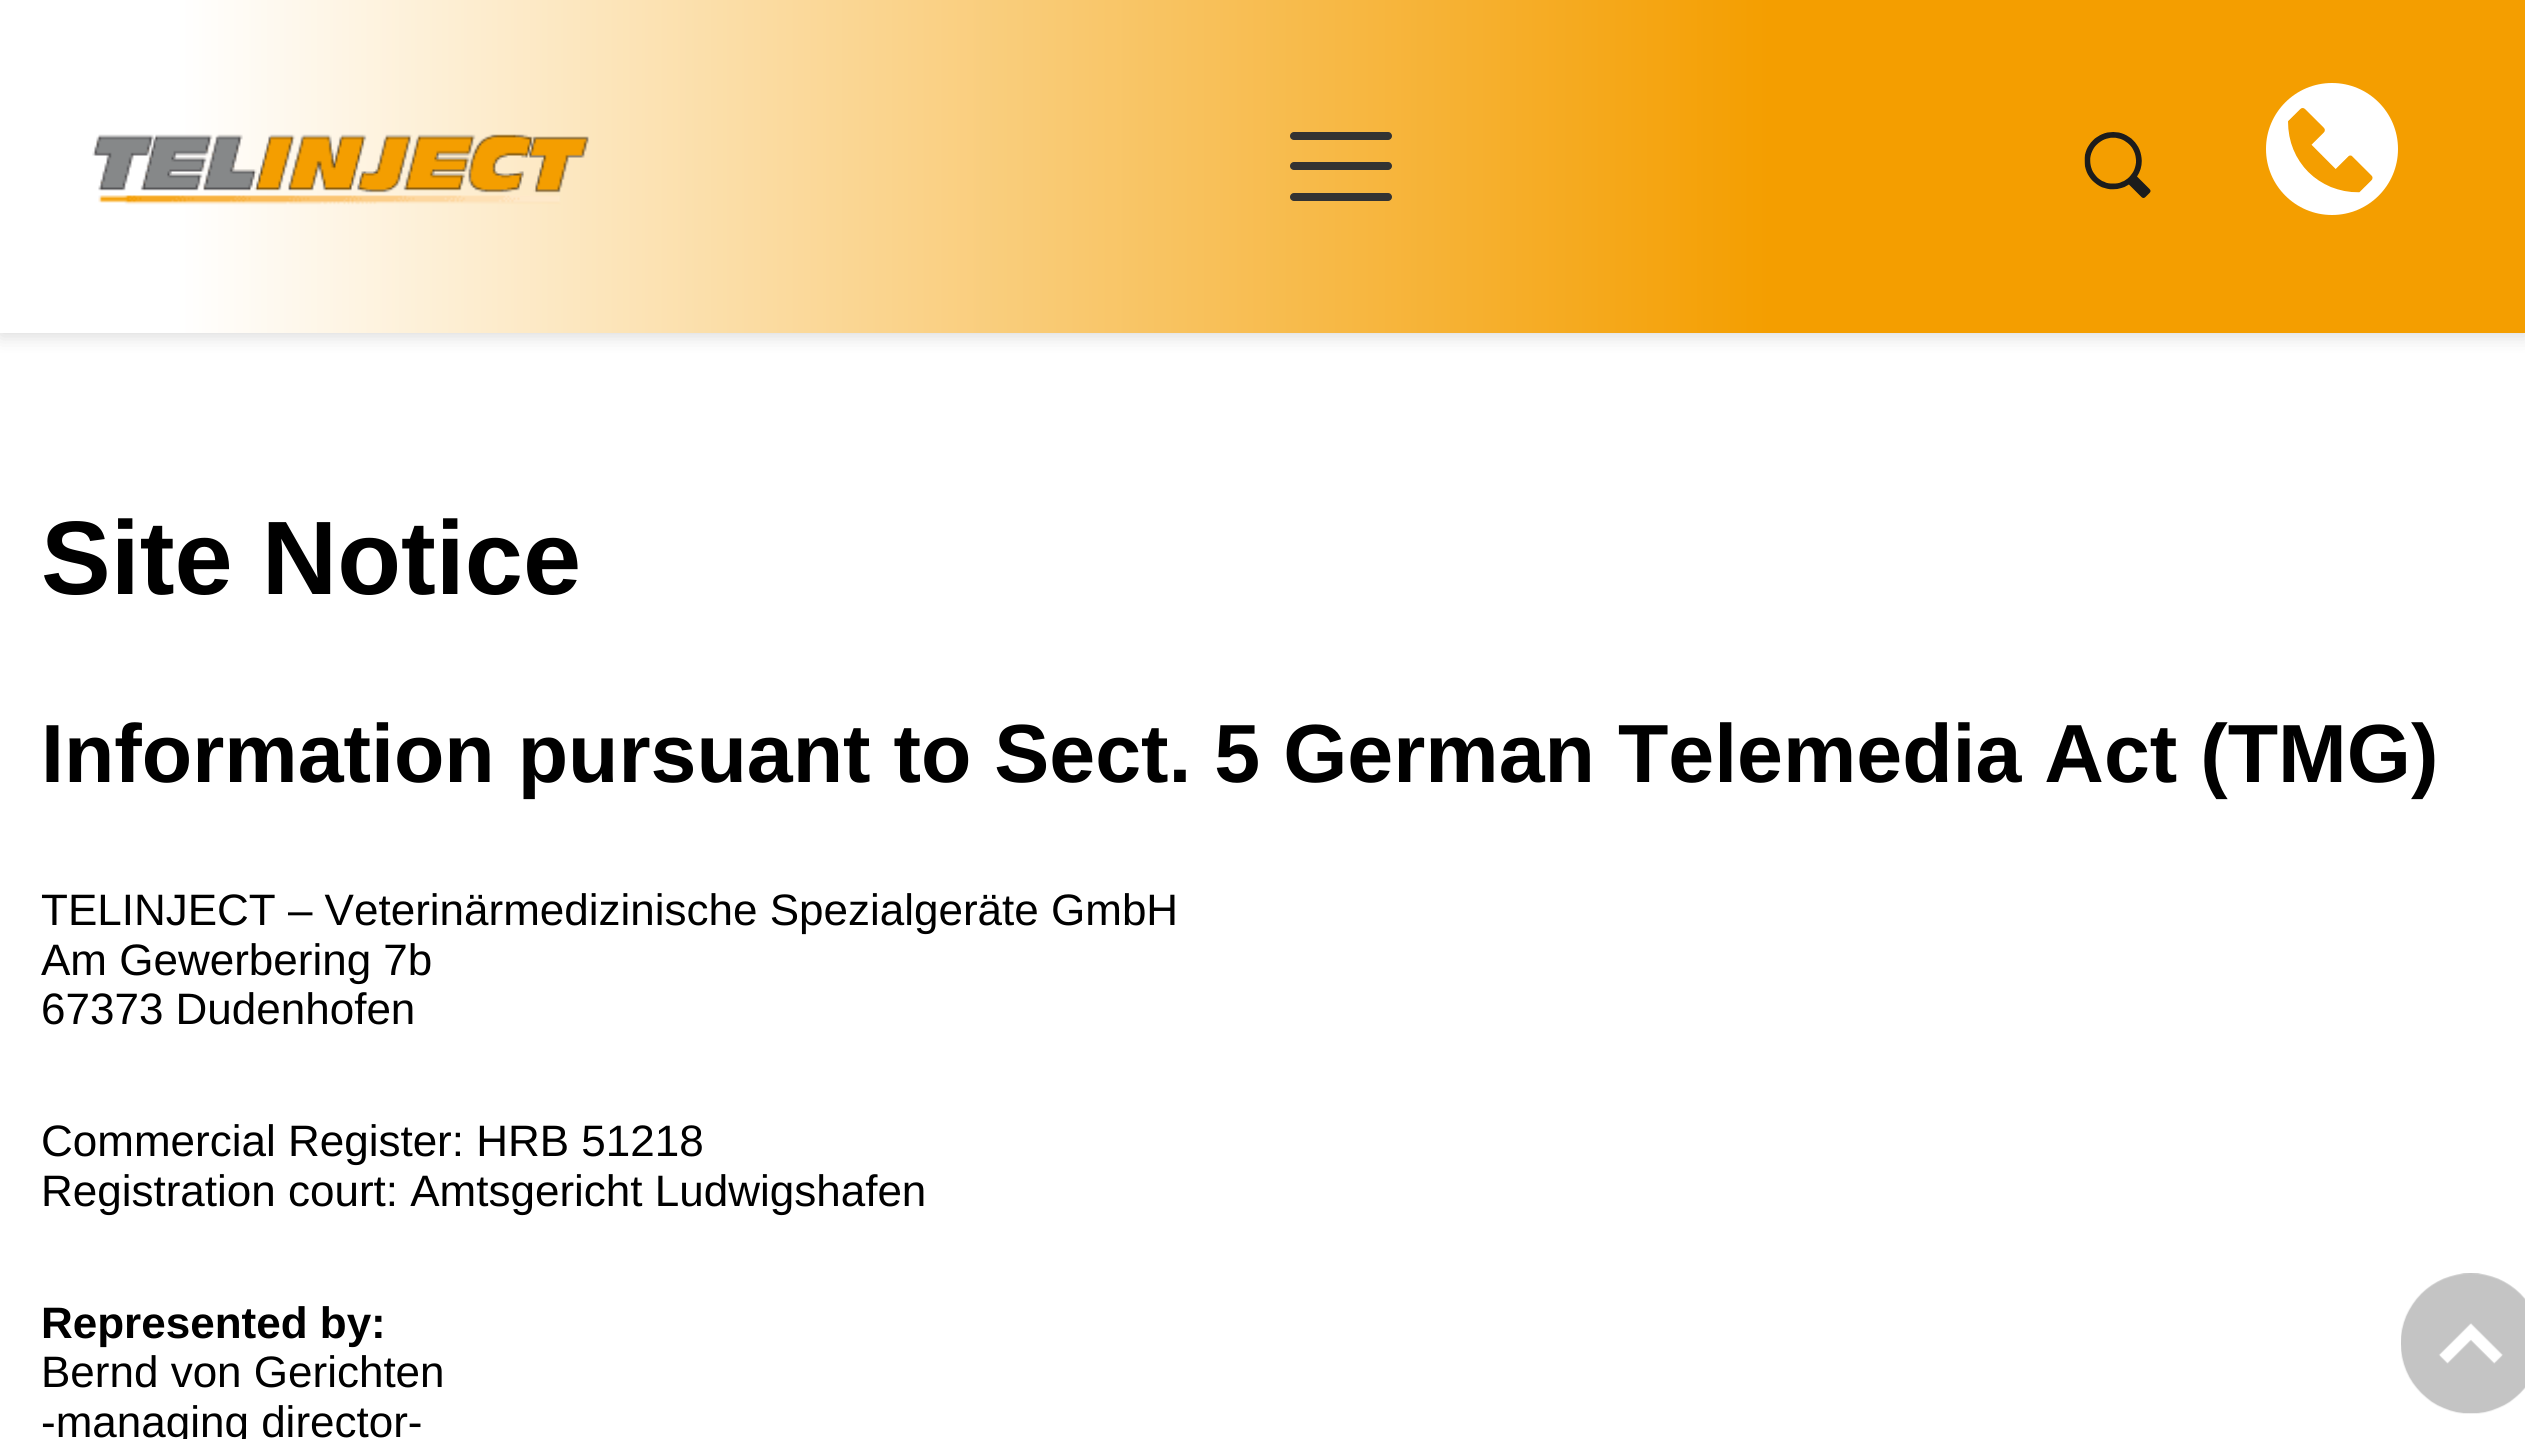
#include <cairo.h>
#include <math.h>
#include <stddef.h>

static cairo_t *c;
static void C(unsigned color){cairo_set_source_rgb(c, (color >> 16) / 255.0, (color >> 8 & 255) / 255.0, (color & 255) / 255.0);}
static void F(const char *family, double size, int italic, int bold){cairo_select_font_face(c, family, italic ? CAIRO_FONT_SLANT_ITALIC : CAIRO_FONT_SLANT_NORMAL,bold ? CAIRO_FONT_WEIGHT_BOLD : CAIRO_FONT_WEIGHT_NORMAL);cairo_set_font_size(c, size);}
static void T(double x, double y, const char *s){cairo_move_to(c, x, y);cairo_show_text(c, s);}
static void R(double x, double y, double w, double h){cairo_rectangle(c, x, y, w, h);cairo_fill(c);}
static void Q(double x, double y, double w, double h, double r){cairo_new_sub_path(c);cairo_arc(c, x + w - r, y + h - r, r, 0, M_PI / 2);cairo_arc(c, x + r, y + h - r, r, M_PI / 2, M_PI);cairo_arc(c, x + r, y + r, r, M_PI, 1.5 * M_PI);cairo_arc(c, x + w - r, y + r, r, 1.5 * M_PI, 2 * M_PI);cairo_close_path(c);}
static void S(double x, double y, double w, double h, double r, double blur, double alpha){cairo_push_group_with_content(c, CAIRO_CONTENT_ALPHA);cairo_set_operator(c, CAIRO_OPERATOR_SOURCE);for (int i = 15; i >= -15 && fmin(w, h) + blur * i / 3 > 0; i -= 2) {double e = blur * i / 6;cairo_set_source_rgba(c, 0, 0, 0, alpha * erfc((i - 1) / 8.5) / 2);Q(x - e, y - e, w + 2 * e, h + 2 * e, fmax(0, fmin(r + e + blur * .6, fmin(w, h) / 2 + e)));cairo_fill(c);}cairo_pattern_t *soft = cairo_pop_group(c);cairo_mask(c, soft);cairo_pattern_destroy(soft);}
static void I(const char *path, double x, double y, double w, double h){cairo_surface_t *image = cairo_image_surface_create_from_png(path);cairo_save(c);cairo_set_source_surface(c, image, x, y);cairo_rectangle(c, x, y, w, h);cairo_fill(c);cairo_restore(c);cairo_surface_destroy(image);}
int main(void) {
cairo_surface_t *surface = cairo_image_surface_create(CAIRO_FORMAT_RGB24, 2525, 1439);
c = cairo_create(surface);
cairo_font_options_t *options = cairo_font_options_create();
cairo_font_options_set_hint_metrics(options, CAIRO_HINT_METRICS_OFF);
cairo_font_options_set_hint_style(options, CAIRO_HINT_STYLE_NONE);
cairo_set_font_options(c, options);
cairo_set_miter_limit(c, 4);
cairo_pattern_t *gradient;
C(0xffffff);
cairo_paint(c);
C(0x000000);
S(0,3,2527,333,0,9.5,.15);
gradient = cairo_pattern_create_linear(0,166,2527,166);
cairo_pattern_add_color_stop_rgba(gradient,.07,1,1,1,1);
cairo_pattern_add_color_stop_rgba(gradient,.7,0.957,0.62,0,1);
cairo_set_source(c,gradient);
cairo_pattern_destroy(gradient);
R(0,0,2525,333);
I("1.png",92,134,497,71);
C(0x333333);
Q(1290,132,102,8,4);
cairo_fill(c);
Q(1290,162,102,8,4);
cairo_fill(c);
Q(1290,193,102,8,4);
cairo_fill(c);
I("2.png",2084,132,67,66);
C(0xffffff);
cairo_arc(c,2332,149,66,0,2 * M_PI);
cairo_fill(c);
I("3.png",2288,108,85,85);
F("Liberation Sans",104.5,0,1);
C(0x000000);
T(41,594,"Site Notice");
F("Liberation Sans",82.5,0,1);
T(41,782,"Information pursuant to Sect. 5 German Telemedia Act (TMG)");
F("Liberation Sans",44,0,0);
T(41,925,"TELINJECT – Veterinärmedizinische Spezialgeräte GmbH");
T(41,975,"Am Gewerbering 7b");
T(41,1024,"67373 Dudenhofen");
T(41,1156,"Commercial Register: HRB 51218");
T(41,1206,"Registration court: Amtsgericht Ludwigshafen");
F("Liberation Sans",44,0,1);
T(41,1338,"Represented by:");
F("Liberation Sans",44,0,0);
T(41,1387,"Bernd von Gerichten");
T(41,1437,"-managing director-");
I("4.png",2401,1273,124,141);
cairo_surface_write_to_png(surface, "o.png");
cairo_font_options_destroy(options);
cairo_destroy(c);
cairo_surface_destroy(surface);
return 0;
}
